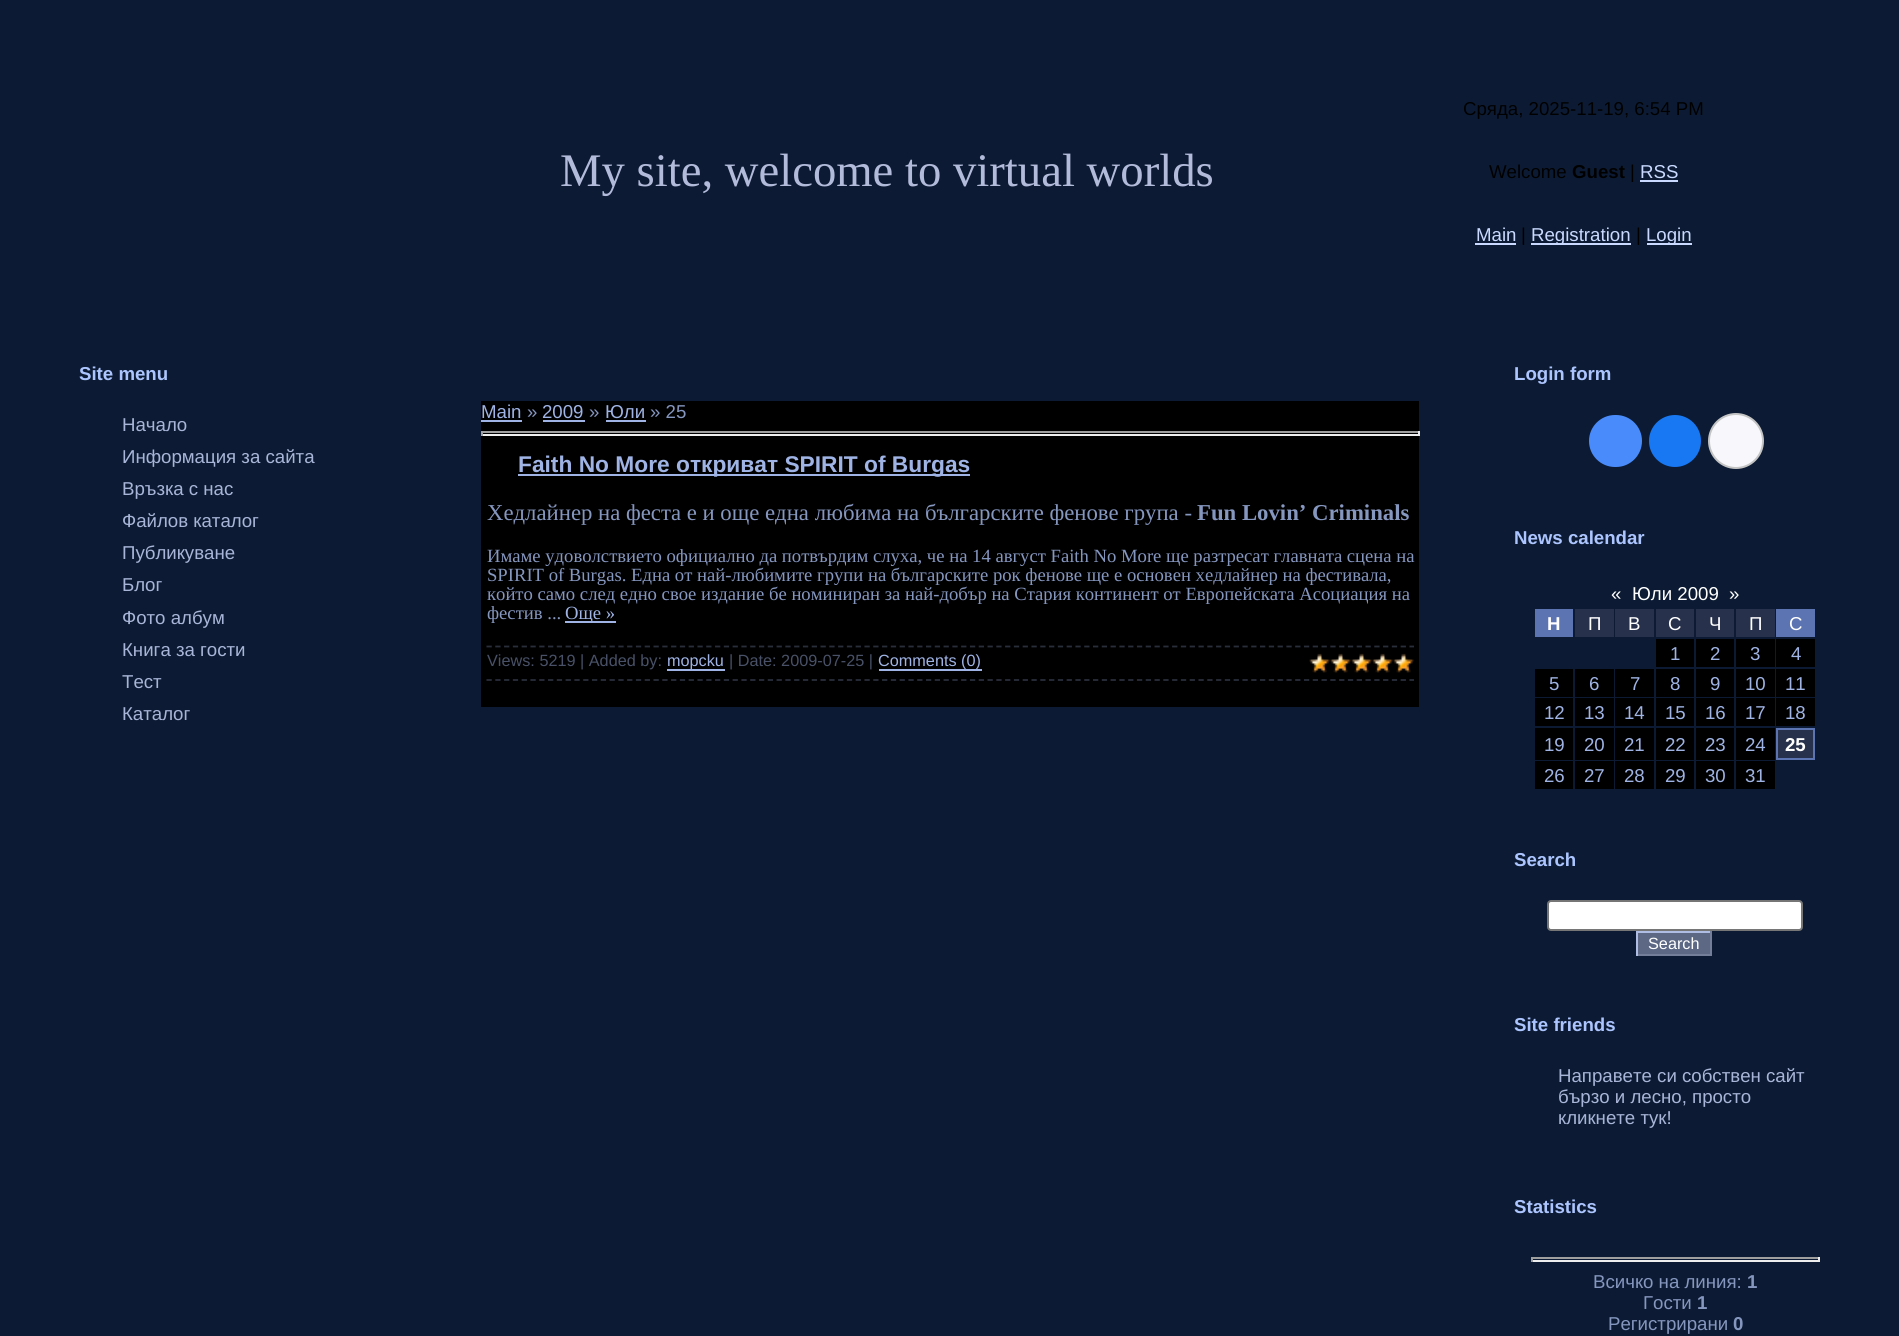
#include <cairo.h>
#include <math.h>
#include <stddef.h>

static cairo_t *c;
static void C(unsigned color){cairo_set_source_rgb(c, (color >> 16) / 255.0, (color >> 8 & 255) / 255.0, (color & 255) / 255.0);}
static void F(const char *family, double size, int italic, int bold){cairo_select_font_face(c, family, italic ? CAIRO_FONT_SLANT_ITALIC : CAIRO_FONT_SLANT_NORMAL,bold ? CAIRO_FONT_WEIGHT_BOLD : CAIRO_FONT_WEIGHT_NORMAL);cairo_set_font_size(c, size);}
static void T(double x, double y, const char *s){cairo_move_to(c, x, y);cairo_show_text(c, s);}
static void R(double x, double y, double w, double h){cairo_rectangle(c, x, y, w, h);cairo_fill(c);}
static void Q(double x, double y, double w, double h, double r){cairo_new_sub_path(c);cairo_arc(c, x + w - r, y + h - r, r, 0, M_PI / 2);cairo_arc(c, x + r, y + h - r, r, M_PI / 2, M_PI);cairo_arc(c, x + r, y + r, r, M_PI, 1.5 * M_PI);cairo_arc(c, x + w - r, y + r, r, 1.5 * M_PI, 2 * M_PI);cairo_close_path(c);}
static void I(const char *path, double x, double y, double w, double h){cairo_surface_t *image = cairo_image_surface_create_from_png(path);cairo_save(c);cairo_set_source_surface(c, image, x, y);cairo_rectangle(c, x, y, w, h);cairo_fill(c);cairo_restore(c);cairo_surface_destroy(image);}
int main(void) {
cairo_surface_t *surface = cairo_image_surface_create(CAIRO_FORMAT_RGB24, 1899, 1336);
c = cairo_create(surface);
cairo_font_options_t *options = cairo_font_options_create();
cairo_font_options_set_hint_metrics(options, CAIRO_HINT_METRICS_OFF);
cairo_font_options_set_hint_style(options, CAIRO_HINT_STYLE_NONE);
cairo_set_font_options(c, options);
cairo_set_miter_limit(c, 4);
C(0x0c1b33);
cairo_paint(c);
F("Liberation Serif",46.7,0,0);
C(0xb3bbdb);
T(560,186,"My site, welcome to virtual worlds");
F("Liberation Sans",18.65,0,0);
C(0x000000);
T(1463,115,"Сряда, 2025-11-19, 6:54 PM");
T(1489,178,"Welcome");
F("Liberation Sans",18.65,0,1);
T(1572,178,"Guest");
F("Liberation Sans",18.65,0,0);
T(1630,178,"|");
C(0xc9d9ff);
T(1640,178,"RSS");
R(1640,180,38,2);
T(1476,241,"Main");
R(1475,243,41,2);
C(0x000000);
T(1521,241,"|");
C(0xc9d9ff);
R(1531,243,100,2);
T(1531,241,"Registration");
C(0x000000);
T(1636,241,"|");
C(0xc9d9ff);
R(1647,243,45,2);
T(1646,241,"Login");
F("Liberation Sans",18.65,0,1);
C(0xacc5ff);
T(79,380,"Site menu");
F("Liberation Sans",18.65,0,0);
C(0xa9b5d8);
T(122,431,"Начало");
T(122,463,"Информация за сайта");
T(122,495,"Връзка с нас");
T(122,527,"Файлов каталог");
T(122,559,"Публикуване");
T(122,591,"Блог");
T(122,624,"Фото албум");
T(122,656,"Книга за гости");
T(122,688,"Тест");
T(122,720,"Каталог");
C(0x000000);
R(481,401,938,306);
C(0x9fb4e5);
T(481,418,"Main");
R(481,420,41,2);
C(0x8596bf);
T(527,418,"»");
C(0x9fb4e5);
T(542,418,"2009");
R(543,420,42,2);
C(0x8596bf);
T(589,418,"»");
C(0x9fb4e5);
T(605,418,"Юли");
R(606,420,40,2);
C(0x8596bf);
T(650,418,"» 25");
C(0x9f9f9f);
R(481,431,938,2);
C(0xeeeeee);
R(1418,431,2,5);
R(481,434,938,2);
C(0x9f9f9f);
R(481,431,2,5);
C(0x9fb4e5);
R(518,474,452,2);
F("Liberation Sans",22.75,0,1);
T(518,472,"Faith No More откриват SPIRIT of Burgas");
F("Liberation Serif",22.75,0,0);
C(0x8596bf);
T(487,520,"Хедлайнер на феста е и още една любима на българските фенове група -");
F("Liberation Serif",22.75,0,1);
T(1197,520,"Fun Lovin’ Criminals");
F("Liberation Serif",18.65,0,0);
T(487,562,"Имаме удоволствието официално да потвърдим слуха, че на 14 август Faith No More ще разтресат главната сцена на");
T(487,581,"SPIRIT of Burgas. Една от най-любимите групи на българските рок фенове ще е основен хедлайнер на фестивала,");
T(487,600,"който само след едно свое издание бе номиниран за най-добър на Стария континент от Европейската Асоциация на");
T(487,619,"фестив ...");
C(0x9fb4e5);
R(565,621,51,2);
T(565,619,"Още »");
cairo_new_path(c);
cairo_move_to(c,486.5,646.5);
cairo_line_to(c,1414,646.5);
C(0x292e3b);
cairo_set_line_width(c,1.8);
cairo_set_dash(c,(double[]){5.25,3.54},2,0);
cairo_stroke(c);
cairo_new_path(c);
cairo_move_to(c,486.5,680);
cairo_line_to(c,1414,680);
cairo_stroke(c);
F("Liberation Sans",16.25,0,0);
C(0x485167);
T(487,666,"Views: 5219 | Added by:");
C(0x9fb4e5);
R(667,669,58,2);
T(667,666,"mopcku");
C(0x485167);
T(729,666,"| Date: 2009-07-25 |");
C(0x9fb4e5);
R(879,669,103,2);
T(878,666,"Comments (0)");
I("1.png",1309,654,105,19);
I("2.png",1309,653,105,20);
F("Liberation Sans",18.65,0,1);
C(0xacc5ff);
T(1514,380,"Login form");
C(0x498bfa);
Q(1589,415,53,52,26);
cairo_fill(c);
C(0x1877f2);
cairo_arc(c,1675,441,26,0,2 * M_PI);
cairo_fill(c);
C(0xf8f8fc);
cairo_arc(c,1736,441,27,0,2 * M_PI);
cairo_fill_preserve(c);
C(0xc4c4c4);
cairo_set_line_width(c,2);
cairo_set_dash(c,NULL,0,0);
cairo_stroke(c);
C(0xacc5ff);
T(1514,544,"News calendar");
F("Liberation Sans",18.65,0,0);
C(0xffffff);
T(1611,600,"«");
T(1632,600,"Юли 2009");
T(1729,600,"»");
C(0x5d74b2);
R(1535,609,38,28);
F("Liberation Sans",18.65,0,1);
C(0xffffff);
T(1547,630,"Н");
C(0x27314b);
R(1575,609,39,28);
F("Liberation Sans",18.65,0,0);
C(0xffffff);
T(1588,630,"П");
C(0x27314b);
R(1615,609,39,28);
C(0xffffff);
T(1628,630,"В");
C(0x27314b);
R(1656,609,38,28);
C(0xffffff);
T(1668,630,"С");
C(0x27314b);
R(1696,609,38,28);
C(0xffffff);
T(1709,630,"Ч");
C(0x27314b);
R(1736,609,39,28);
C(0xffffff);
T(1749,630,"П");
C(0x5d74b2);
R(1776,609,39,28);
C(0xffffff);
T(1789,630,"С");
C(0x000000);
R(1656,639,38,28);
C(0x9fb4e5);
T(1670,660,"1");
C(0x000000);
R(1696,639,38,28);
C(0x9fb4e5);
T(1710,660,"2");
C(0x000000);
R(1736,639,39,28);
C(0x9fb4e5);
T(1750,660,"3");
C(0x000000);
R(1776,639,39,28);
C(0x9fb4e5);
T(1791,660,"4");
C(0x000000);
R(1535,669,38,28);
C(0x9fb4e5);
T(1549,690,"5");
C(0x000000);
R(1575,669,39,28);
C(0x9fb4e5);
T(1589,690,"6");
C(0x000000);
R(1615,669,39,28);
C(0x9fb4e5);
T(1630,690,"7");
C(0x000000);
R(1656,669,38,28);
C(0x9fb4e5);
T(1670,690,"8");
C(0x000000);
R(1696,669,38,28);
C(0x9fb4e5);
T(1710,690,"9");
C(0x000000);
R(1736,669,39,28);
C(0x9fb4e5);
T(1745,690,"10");
C(0x000000);
R(1776,669,39,28);
C(0x9fb4e5);
T(1785,690,"11");
C(0x000000);
R(1535,698,38,28);
C(0x9fb4e5);
T(1544,719,"12");
C(0x000000);
R(1575,698,39,28);
C(0x9fb4e5);
T(1584,719,"13");
C(0x000000);
R(1615,698,39,28);
C(0x9fb4e5);
T(1624,719,"14");
C(0x000000);
R(1656,698,38,28);
C(0x9fb4e5);
T(1665,719,"15");
C(0x000000);
R(1696,698,38,28);
C(0x9fb4e5);
T(1705,719,"16");
C(0x000000);
R(1736,698,39,28);
C(0x9fb4e5);
T(1745,719,"17");
C(0x000000);
R(1776,698,39,28);
C(0x9fb4e5);
T(1785,719,"18");
C(0x000000);
R(1535,728,38,32);
C(0x9fb4e5);
T(1544,751,"19");
C(0x000000);
R(1575,728,39,32);
C(0x9fb4e5);
T(1584,751,"20");
C(0x000000);
R(1615,728,39,32);
C(0x9fb4e5);
T(1624,751,"21");
C(0x000000);
R(1656,728,38,32);
C(0x9fb4e5);
T(1665,751,"22");
C(0x000000);
R(1696,728,38,32);
C(0x9fb4e5);
T(1705,751,"23");
C(0x000000);
R(1736,728,39,32);
C(0x9fb4e5);
T(1745,751,"24");
C(0x27314b);
cairo_rectangle(c,1777,729,37,30);
cairo_fill_preserve(c);
C(0x5d74b2);
cairo_stroke(c);
F("Liberation Sans",18.65,0,1);
C(0xffffff);
T(1785,751,"25");
C(0x000000);
R(1535,761,38,28);
F("Liberation Sans",18.65,0,0);
C(0x9fb4e5);
T(1544,782,"26");
C(0x000000);
R(1575,761,39,28);
C(0x9fb4e5);
T(1584,782,"27");
C(0x000000);
R(1615,761,39,28);
C(0x9fb4e5);
T(1624,782,"28");
C(0x000000);
R(1656,761,38,28);
C(0x9fb4e5);
T(1665,782,"29");
C(0x000000);
R(1696,761,38,28);
C(0x9fb4e5);
T(1705,782,"30");
C(0x000000);
R(1736,761,39,28);
C(0x9fb4e5);
T(1745,782,"31");
F("Liberation Sans",18.65,0,1);
C(0xacc5ff);
T(1514,866,"Search");
C(0xffffff);
Q(1548,901,254,29,3);
cairo_fill_preserve(c);
C(0x767676);
cairo_stroke(c);
C(0x5c6884);
R(1638,933,72,21);
C(0xafbde4);
R(1636,931,76,2);
C(0x757e98);
R(1710,931,2,25);
R(1636,954,76,2);
C(0xafbde4);
R(1636,931,2,25);
F("Liberation Sans",16.25,0,0);
C(0xffffff);
T(1648,949,"Search");
F("Liberation Sans",18.65,0,1);
C(0xacc5ff);
T(1514,1031,"Site friends");
F("Liberation Sans",18.65,0,0);
C(0xa9b5d8);
T(1558,1082,"Направете си собствен сайт");
T(1558,1103,"бързо и лесно, просто");
T(1558,1124,"кликнете тук!");
F("Liberation Sans",18.65,0,1);
C(0xacc5ff);
T(1514,1213,"Statistics");
C(0x9f9f9f);
R(1531,1257,289,2);
C(0xeeeeee);
R(1818,1257,2,5);
R(1531,1260,289,2);
C(0x9f9f9f);
R(1531,1257,2,5);
F("Liberation Sans",18.65,0,0);
C(0x8596bf);
T(1593,1288,"Всичко на линия:");
F("Liberation Sans",18.65,0,1);
T(1747,1288,"1");
F("Liberation Sans",18.65,0,0);
T(1643,1309,"Гости");
F("Liberation Sans",18.65,0,1);
T(1697,1309,"1");
F("Liberation Sans",18.65,0,0);
T(1608,1330,"Регистрирани");
F("Liberation Sans",18.65,0,1);
T(1733,1330,"0");
cairo_surface_write_to_png(surface, "o.png");
cairo_font_options_destroy(options);
cairo_destroy(c);
cairo_surface_destroy(surface);
return 0;
}
